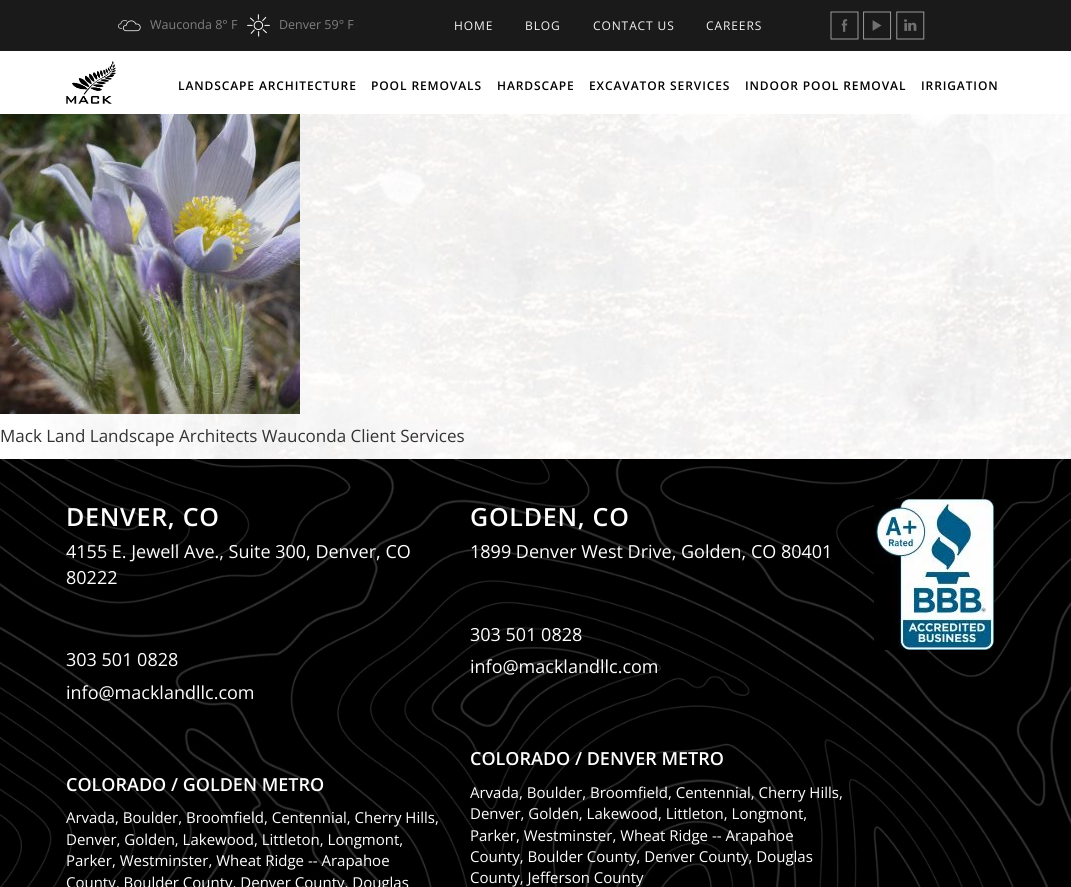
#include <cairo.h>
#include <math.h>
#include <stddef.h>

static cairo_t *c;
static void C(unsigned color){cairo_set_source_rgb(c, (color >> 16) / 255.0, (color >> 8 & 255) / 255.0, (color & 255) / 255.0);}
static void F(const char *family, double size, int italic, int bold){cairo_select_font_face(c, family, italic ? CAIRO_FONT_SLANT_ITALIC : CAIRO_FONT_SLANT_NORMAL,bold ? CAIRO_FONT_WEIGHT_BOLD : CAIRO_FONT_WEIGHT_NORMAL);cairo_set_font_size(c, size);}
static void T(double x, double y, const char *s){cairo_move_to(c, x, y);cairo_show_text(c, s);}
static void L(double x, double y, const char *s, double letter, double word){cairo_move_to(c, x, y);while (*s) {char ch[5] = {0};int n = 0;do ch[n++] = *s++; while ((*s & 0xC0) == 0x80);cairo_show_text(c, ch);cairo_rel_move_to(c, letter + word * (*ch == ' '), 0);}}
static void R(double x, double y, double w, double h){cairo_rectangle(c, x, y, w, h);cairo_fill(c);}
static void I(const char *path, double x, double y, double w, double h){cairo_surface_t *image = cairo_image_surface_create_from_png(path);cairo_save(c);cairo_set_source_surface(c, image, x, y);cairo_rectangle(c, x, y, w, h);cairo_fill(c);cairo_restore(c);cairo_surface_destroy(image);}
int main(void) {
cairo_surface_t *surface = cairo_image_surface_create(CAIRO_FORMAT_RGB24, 1071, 887);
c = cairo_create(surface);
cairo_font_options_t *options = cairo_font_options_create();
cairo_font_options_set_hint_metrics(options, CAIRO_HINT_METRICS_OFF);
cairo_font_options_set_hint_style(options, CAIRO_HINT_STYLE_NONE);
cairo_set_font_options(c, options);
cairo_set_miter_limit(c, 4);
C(0xffffff);
cairo_paint(c);
I("1.png",0,114,1071,345);
C(0x1a1a1a);
R(0,0,1071,51);
I("2.png",118,20,23,12);
F("Open Sans",12.5,0,0);
C(0x7e7e7e);
T(150,29,"Wauconda 8° F");
I("3.png",247,14,23,23);
T(279,29,"Denver 59° F");
F("Open Sans",12,0,0);
C(0xf3f3f3);
L(454,30,"HOME",.9,0);
L(525,30,"BLOG",.9,0);
L(593,30,"CONTACT US",.9,0);
L(706,30,"CAREERS",.9,0);
I("4.png",830,11,29,29);
I("5.png",863,11,29,29);
I("6.png",896,11,29,29);
I("7.png",66,61,50,43);
F("Open Sans SemiBold",12,0,0);
C(0x000000);
L(178,90,"LANDSCAPE ARCHITECTURE",.9,0);
L(371,90,"POOL REMOVALS",.9,0);
L(497,90,"HARDSCAPE",.9,0);
L(589,90,"EXCAVATOR SERVICES",.9,0);
L(745,90,"INDOOR POOL REMOVAL",.9,0);
L(921,90,"IRRIGATION",.9,0);
I("8.png",0,114,300,300);
F("Open Sans",17,0,0);
C(0x333333);
T(0,442,"Mack Land Landscape Architects Wauconda Client Services");
I("9.png",0,459,1071,428);
F("Open Sans SemiBold",25,0,0);
C(0xffffff);
L(66,526,"DENVER, CO",.75,0);
F("Open Sans",18,0,0);
T(66,558,"4155 E. Jewell Ave., Suite 300, Denver, CO");
T(66,584,"80222");
T(66,666,"303 501 0828");
T(66,699,"info@macklandllc.com");
F("Open Sans SemiBold",18,0,0);
T(66,791,"COLORADO / GOLDEN METRO");
F("Open Sans",15,0,0);
T(66,823,"Arvada, Boulder, Broomfield, Centennial, Cherry Hills,");
T(66,845,"Denver, Golden, Lakewood, Littleton, Longmont,");
T(66,866,"Parker, Westminster, Wheat Ridge -- Arapahoe");
T(66,888,"County, Boulder County, Denver County, Douglas");
F("Open Sans SemiBold",25,0,0);
L(470,526,"GOLDEN, CO",.75,0);
F("Open Sans",18,0,0);
T(470,558,"1899 Denver West Drive, Golden, CO 80401");
T(470,641,"303 501 0828");
T(470,673,"info@macklandllc.com");
F("Open Sans SemiBold",18,0,0);
T(470,765,"COLORADO / DENVER METRO");
F("Open Sans",15,0,0);
T(470,798,"Arvada, Boulder, Broomfield, Centennial, Cherry Hills,");
T(470,819,"Denver, Golden, Lakewood, Littleton, Longmont,");
T(470,841,"Parker, Westminster, Wheat Ridge -- Arapahoe");
T(470,862,"County, Boulder County, Denver County, Douglas");
T(470,883,"County, Jefferson County");
I("10.png",874,499,120,151);
cairo_surface_write_to_png(surface, "o.png");
cairo_font_options_destroy(options);
cairo_destroy(c);
cairo_surface_destroy(surface);
return 0;
}
